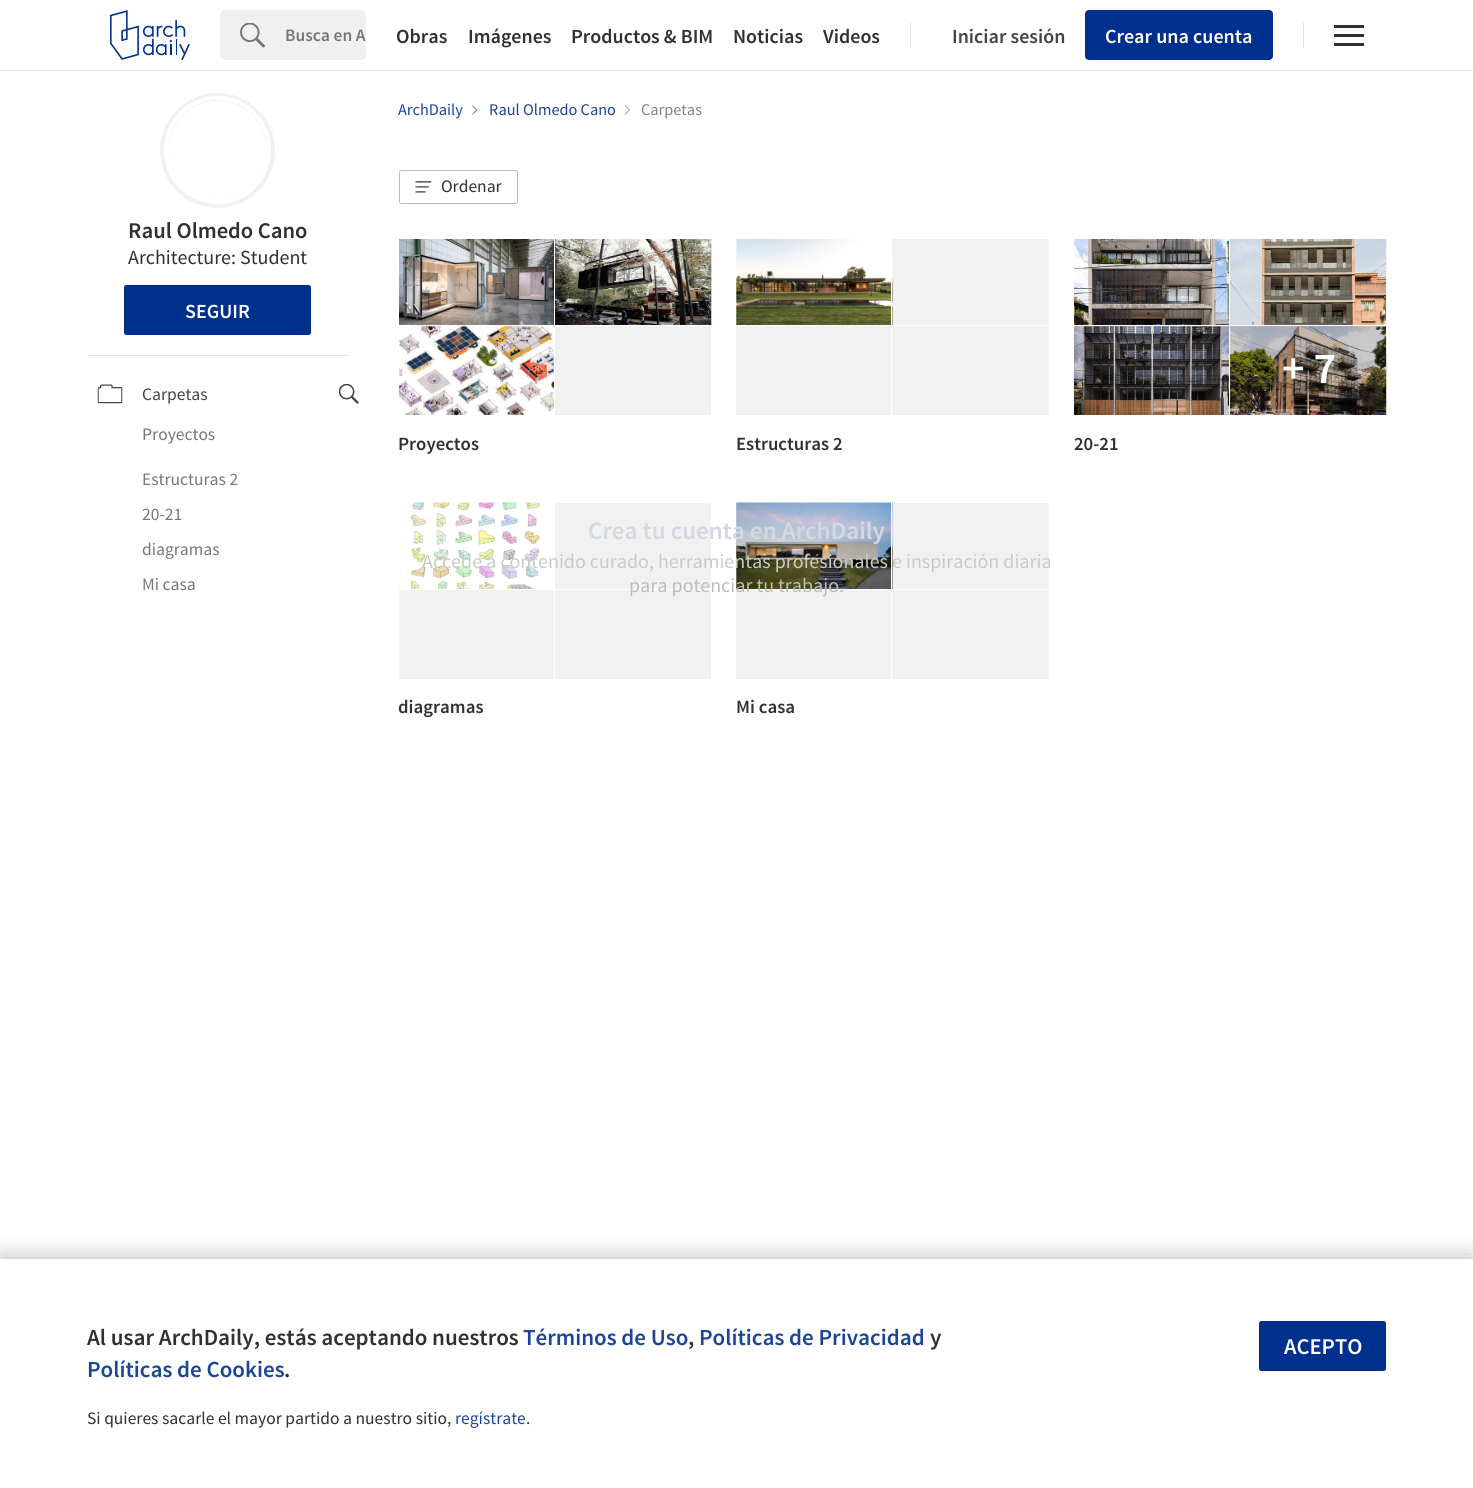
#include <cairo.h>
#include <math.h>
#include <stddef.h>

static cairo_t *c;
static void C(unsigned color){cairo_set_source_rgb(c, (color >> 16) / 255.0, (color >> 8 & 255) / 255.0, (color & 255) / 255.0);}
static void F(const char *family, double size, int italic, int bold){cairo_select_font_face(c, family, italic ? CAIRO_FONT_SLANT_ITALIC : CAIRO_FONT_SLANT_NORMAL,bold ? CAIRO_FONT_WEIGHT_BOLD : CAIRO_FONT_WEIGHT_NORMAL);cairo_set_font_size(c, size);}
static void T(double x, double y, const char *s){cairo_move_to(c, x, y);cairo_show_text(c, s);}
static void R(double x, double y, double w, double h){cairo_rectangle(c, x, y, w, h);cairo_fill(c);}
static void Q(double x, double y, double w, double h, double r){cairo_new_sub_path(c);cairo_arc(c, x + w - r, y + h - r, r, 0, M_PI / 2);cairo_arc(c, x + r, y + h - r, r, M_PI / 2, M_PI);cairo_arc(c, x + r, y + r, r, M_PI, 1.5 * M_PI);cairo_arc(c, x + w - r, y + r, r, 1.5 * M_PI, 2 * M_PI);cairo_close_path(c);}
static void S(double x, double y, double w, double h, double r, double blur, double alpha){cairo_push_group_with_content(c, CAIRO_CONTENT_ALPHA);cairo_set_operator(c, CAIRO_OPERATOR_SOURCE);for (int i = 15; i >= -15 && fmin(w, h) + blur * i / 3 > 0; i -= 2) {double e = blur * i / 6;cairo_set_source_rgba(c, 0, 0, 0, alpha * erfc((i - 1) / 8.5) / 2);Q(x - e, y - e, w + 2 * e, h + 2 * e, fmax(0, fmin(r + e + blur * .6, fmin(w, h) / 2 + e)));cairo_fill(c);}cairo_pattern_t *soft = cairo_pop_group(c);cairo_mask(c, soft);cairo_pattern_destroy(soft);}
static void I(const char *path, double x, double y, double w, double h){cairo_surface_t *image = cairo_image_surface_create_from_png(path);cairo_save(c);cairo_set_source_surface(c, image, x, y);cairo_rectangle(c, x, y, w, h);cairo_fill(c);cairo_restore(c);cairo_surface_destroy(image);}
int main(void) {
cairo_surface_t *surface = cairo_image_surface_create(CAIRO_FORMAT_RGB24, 1473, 1488);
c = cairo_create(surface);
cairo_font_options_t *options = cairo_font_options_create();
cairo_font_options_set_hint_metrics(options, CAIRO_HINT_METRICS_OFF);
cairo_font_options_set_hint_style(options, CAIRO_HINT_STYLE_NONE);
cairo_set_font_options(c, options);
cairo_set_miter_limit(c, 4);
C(0xffffff);
cairo_paint(c);
C(0xe1e1e1);
R(0,70,1473,1);
I("1.png",110,10,80,50);
C(0xf0f0f0);
Q(220,10,146,50,5);
cairo_fill(c);
I("2.png",240,23,25,25);
F("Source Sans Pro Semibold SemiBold",17.5,0,0);
C(0x767676);
T(285,41,"Busca en A");
F("Source Sans Pro Semibold SemiBold",20,0,0);
C(0x303030);
T(396,43,"Obras");
T(468,43,"Imágenes");
T(571,43,"Productos & BIM");
T(733,43,"Noticias");
T(823,43,"Videos");
C(0xe1e1e1);
R(910,23,1,25);
C(0x444444);
T(952,43,"Iniciar sesión");
C(0x00308e);
Q(1085,10,188,50,4);
cairo_fill(c);
C(0xffffff);
T(1105,43,"Crear una cuenta");
C(0xe1e1e1);
R(1303,23,1,25);
C(0x303030);
R(1334,34,30,3);
R(1334,25,30,3);
R(1334,43,30,3);
C(0x000000);
S(0,1259,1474,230,0,12.5,.15);
cairo_arc(c,217.5,150.5,53.5,0,2 * M_PI);
C(0xf1f1f1);
cairo_set_line_width(c,8);
cairo_stroke(c);
Q(166,98,103,104,51.5);
C(0xffffff);
cairo_set_line_width(c,4);
cairo_stroke(c);
F("Source Sans Pro Semibold SemiBold",22.5,0,0);
C(0x303030);
T(128,238,"Raul Olmedo Cano");
F("Source Sans Pro",20,0,0);
T(128,264,"Architecture: Student");
C(0x00308e);
Q(124,285,187,50,2.5);
cairo_fill(c);
F("Source Sans Pro Semibold SemiBold",20,0,0);
C(0xffffff);
T(185,318,"SEGUIR");
C(0xe1e1e1);
R(88,355,261,1);
I("3.png",97,384,26,20);
F("Source Sans Pro",17.5,0,0);
C(0x444444);
T(142,400,"Carpetas");
I("4.png",339,384,20,20);
C(0x767676);
T(142,440,"Proyectos");
T(142,485,"Estructuras 2");
T(142,520,"20-21");
T(142,555,"diagramas");
T(142,590,"Mi casa");
F("Source Sans Pro",16.25,0,0);
C(0x1a4599);
T(398,115,"ArchDaily");
C(0x828282);
cairo_new_path(c);
cairo_move_to(c,472.5,115);
cairo_line_to(c,472.5,105);
cairo_line_to(c,477.5,110);
cairo_close_path(c);
cairo_fill(c);
C(0xffffff);
cairo_new_path(c);
cairo_move_to(c,471,115);
cairo_line_to(c,471,105);
cairo_line_to(c,476,110);
cairo_close_path(c);
cairo_fill(c);
C(0x1a4599);
T(489,115,"Raul Olmedo Cano");
C(0x828282);
cairo_new_path(c);
cairo_move_to(c,625,115);
cairo_line_to(c,625,105);
cairo_line_to(c,630,110);
cairo_close_path(c);
cairo_fill(c);
C(0xffffff);
cairo_new_path(c);
cairo_move_to(c,624,115);
cairo_line_to(c,624,105);
cairo_line_to(c,629,110);
cairo_close_path(c);
cairo_fill(c);
C(0x828282);
T(641,115,"Carpetas");
Q(399.5,170.5,118,33,2);
C(0xbbbbbb);
cairo_set_line_width(c,1);
cairo_stroke(c);
I("5.png",415,181,17,12);
F("Source Sans Pro",17.5,0,0);
C(0x303030);
T(441,192,"Ordenar");
I("6.png",399,239,155,88);
I("7.png",555,239,157,88);
I("8.png",399,326,155,89);
cairo_rectangle(c,398.5,325.5,157,90);
C(0xffffff);
cairo_stroke(c);
C(0xf1f1f1);
R(555,326,156,89);
cairo_rectangle(c,554.5,325.5,158,90);
C(0xffffff);
cairo_stroke(c);
F("Source Sans Pro Semibold SemiBold",18.75,0,0);
C(0x303030);
T(398,450,"Proyectos");
C(0xf1f1f1);
R(736,239,313,86);
I("9.png",736,239,157,86);
cairo_rectangle(c,891.5,238.5,158,89);
C(0xffffff);
cairo_stroke(c);
C(0xf1f1f1);
R(736,326,313,89);
cairo_rectangle(c,891.5,325.5,158,90);
C(0xffffff);
cairo_stroke(c);
C(0x303030);
T(736,450,"Estructuras 2");
I("10.png",1074,239,155,88);
I("11.png",1230,239,157,88);
I("12.png",1074,326,155,89);
cairo_rectangle(c,1073.5,325.5,157,90);
C(0xffffff);
cairo_stroke(c);
I("13.png",1230,326,157,89);
cairo_rectangle(c,1229.5,325.5,158,90);
cairo_stroke(c);
cairo_set_source_rgba(c,0,0,0,0.2);
R(1230,326,156,83);
F("Source Sans Pro Semibold SemiBold",44,0,0);
C(0xffffff);
T(1282,383,"+ 7");
F("Source Sans Pro Semibold SemiBold",18.75,0,0);
C(0x303030);
T(1074,450,"20-21");
I("14.png",399,502,156,87);
C(0xf1f1f1);
R(555,503,156,86);
R(399,590,155,89);
R(555,590,156,89);
C(0x303030);
T(398,713,"diagramas");
C(0xf1f1f1);
R(736,503,313,86);
I("15.png",736,502,157,87);
cairo_rectangle(c,891.5,501.5,158,89);
C(0xffffff);
cairo_stroke(c);
C(0xf1f1f1);
R(736,590,313,89);
cairo_rectangle(c,891.5,589.5,158,90);
C(0xffffff);
cairo_stroke(c);
C(0x303030);
T(736,713,"Mi casa");
F("Source Sans Pro Semibold SemiBold",25,0,0);
C(0xd3d9e3);
T(588,539,"Crea tu cuenta en ArchDaily");
F("Source Sans Pro",20,0,0);
C(0xcacac5);
T(422,568,"Accede a contenido curado, herramientas profesionales e inspiración diaria");
C(0xbdbdb3);
T(629,592,"para potenciar tu trabajo.");
C(0x000000);
S(0,1259,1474,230,0,12.5,.15);
C(0xffffff);
R(0,1259,1473,229);
F("Source Sans Pro Semibold SemiBold",23,0,0);
C(0x303030);
T(87,1345,"Al usar ArchDaily, estás aceptando nuestros");
C(0x1a4599);
T(523,1345,"Términos de Uso");
C(0x303030);
T(688,1345,",");
C(0x1a4599);
T(699,1345,"Políticas de Privacidad");
C(0x303030);
T(930,1345,"y");
C(0x1a4599);
T(87,1377,"Políticas de Cookies");
C(0x303030);
T(284,1377,".");
F("Source Sans Pro",17.5,0,0);
T(87,1424,"Si quieres sacarle el mayor partido a nuestro sitio,");
C(0x1a4599);
T(455,1424,"regístrate");
C(0x303030);
T(526,1424,".");
C(0x00308e);
Q(1259,1321,127,50,2.5);
cairo_fill(c);
F("Source Sans Pro Semibold SemiBold",22.5,0,0);
C(0xffffff);
T(1284,1354,"ACEPTO");
cairo_surface_write_to_png(surface, "o.png");
cairo_font_options_destroy(options);
cairo_destroy(c);
cairo_surface_destroy(surface);
return 0;
}
